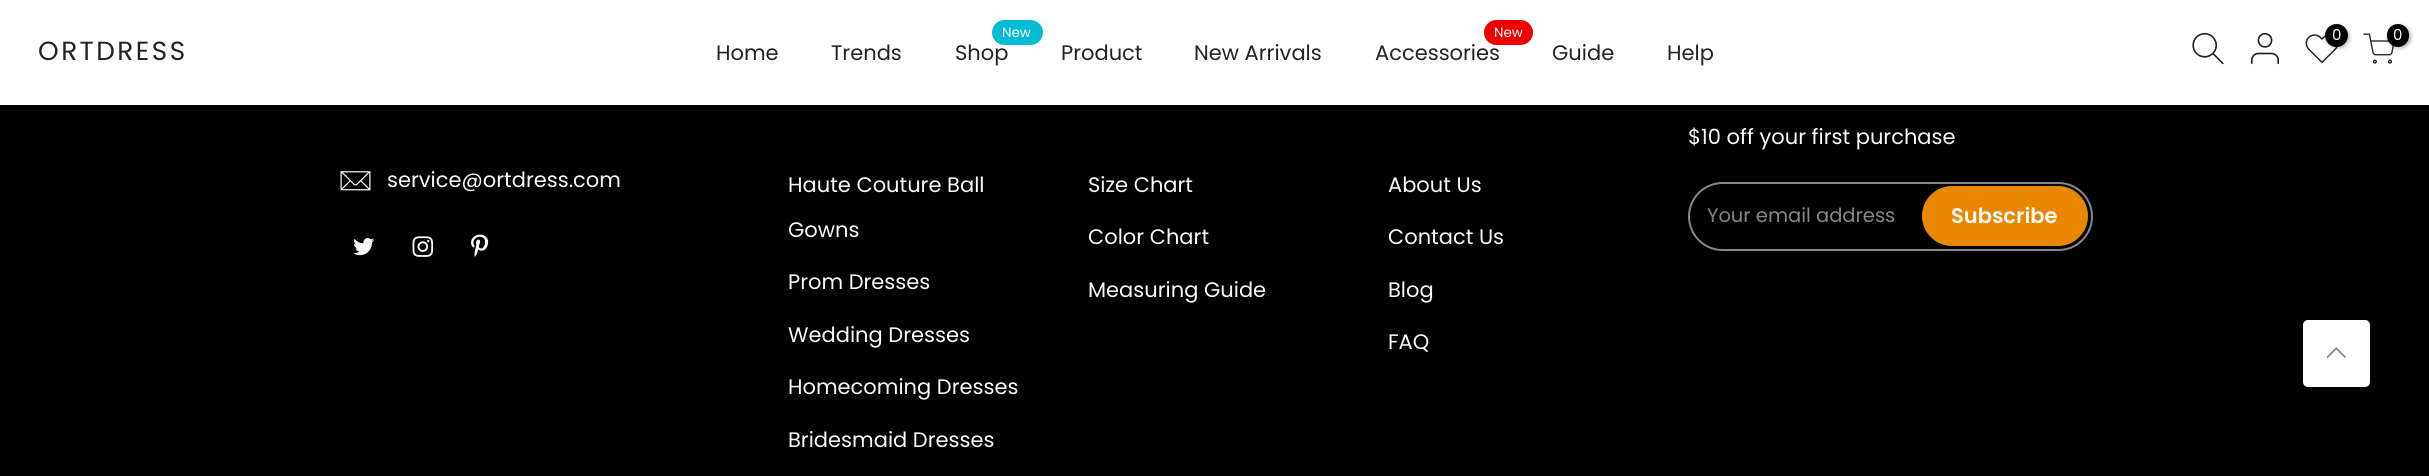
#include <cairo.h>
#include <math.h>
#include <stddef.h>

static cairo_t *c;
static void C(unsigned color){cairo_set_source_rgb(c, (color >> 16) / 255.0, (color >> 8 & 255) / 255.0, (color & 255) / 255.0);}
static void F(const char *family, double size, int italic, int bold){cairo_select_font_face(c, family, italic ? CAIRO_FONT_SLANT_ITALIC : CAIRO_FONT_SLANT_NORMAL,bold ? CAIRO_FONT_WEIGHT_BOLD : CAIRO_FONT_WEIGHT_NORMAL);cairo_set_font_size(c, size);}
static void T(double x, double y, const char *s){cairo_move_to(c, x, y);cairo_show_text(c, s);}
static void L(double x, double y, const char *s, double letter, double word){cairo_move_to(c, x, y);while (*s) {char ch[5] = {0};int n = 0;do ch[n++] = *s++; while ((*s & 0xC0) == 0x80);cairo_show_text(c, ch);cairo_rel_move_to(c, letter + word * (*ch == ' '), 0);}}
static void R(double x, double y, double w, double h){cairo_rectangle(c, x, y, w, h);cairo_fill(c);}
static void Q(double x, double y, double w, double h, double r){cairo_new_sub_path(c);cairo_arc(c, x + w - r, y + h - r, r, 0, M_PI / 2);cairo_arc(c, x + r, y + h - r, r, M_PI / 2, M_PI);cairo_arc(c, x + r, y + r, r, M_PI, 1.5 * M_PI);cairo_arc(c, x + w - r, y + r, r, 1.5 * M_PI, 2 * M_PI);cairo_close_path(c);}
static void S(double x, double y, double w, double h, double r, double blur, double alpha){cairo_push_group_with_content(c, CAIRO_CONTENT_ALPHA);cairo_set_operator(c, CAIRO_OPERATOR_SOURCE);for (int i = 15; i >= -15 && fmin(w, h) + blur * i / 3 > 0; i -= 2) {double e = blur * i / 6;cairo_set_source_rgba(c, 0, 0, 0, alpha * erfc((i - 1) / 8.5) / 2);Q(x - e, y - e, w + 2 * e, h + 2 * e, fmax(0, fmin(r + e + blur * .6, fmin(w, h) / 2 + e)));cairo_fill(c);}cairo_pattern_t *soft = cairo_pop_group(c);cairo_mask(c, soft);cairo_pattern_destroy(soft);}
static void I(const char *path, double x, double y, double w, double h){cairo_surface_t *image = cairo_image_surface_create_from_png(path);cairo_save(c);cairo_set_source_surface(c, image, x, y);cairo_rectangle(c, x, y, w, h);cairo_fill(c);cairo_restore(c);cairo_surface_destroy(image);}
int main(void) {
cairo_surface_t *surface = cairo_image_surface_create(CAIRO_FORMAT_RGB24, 2429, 476);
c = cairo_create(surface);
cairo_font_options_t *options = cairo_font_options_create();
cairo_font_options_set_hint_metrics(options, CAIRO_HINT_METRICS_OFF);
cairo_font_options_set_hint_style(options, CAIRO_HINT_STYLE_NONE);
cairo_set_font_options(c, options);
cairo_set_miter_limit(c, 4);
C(0x000000);
cairo_paint(c);
C(0xffffff);
R(0,0,2429,105);
F("Poppins",21,0,0);
C(0x222222);
T(716,60,"Home");
T(831,60,"Trends");
T(955,60,"Shop");
C(0x01bad4);
Q(992,20,51,25,12.5);
cairo_fill(c);
F("Poppins",13.5,0,0);
C(0xfafafa);
T(1002,37,"New");
F("Poppins",21,0,0);
C(0x222222);
T(1061,60,"Product");
T(1194,60,"New Arrivals");
T(1375,60,"Accessories");
C(0xec0101);
Q(1484,20,49,25,12.5);
cairo_fill(c);
F("Poppins",13.5,0,0);
C(0xfafafa);
T(1494,37,"New");
F("Poppins",21,0,0);
C(0x222222);
T(1552,60,"Guide");
T(1667,60,"Help");
I("1.png",2192,32,32,33);
I("2.png",2251,32,28,33);
I("3.png",2305,34,33,30);
C(0x000000);
S(2327,26,22,22,11,2,.3);
C(0x000000);
cairo_arc(c,2336.5,35.5,11.5,0,2 * M_PI);
cairo_fill(c);
F("Poppins",15,0,0);
C(0xfafafa);
T(2332,40,"0");
I("4.png",2363,33,31,31);
C(0x000000);
S(2388,26,23,22,11,2,.3);
C(0x000000);
Q(2387,24,22,23,11);
cairo_fill(c);
C(0xfafafa);
T(2393,40,"0");
F("Poppins",26.25,0,0);
C(0x222222);
L(38,60,"ORTDRESS",2.5,0);
I("5.png",340,171,31,20);
F("Poppins",21,0,0);
C(0xfafafa);
T(387,187,"service@ortdress.com");
I("6.png",353,238,21,18);
I("7.png",412,236,22,21);
I("8.png",471,234,18,23);
T(788,192,"Haute Couture Ball");
T(788,237,"Gowns");
T(788,289,"Prom Dresses");
T(788,342,"Wedding Dresses");
T(788,394,"Homecoming Dresses");
T(788,447,"Bridesmaid Dresses");
T(1088,192,"Size Chart");
T(1088,244,"Color Chart");
T(1088,297,"Measuring Guide");
T(1388,192,"About Us");
T(1388,244,"Contact Us");
T(1388,297,"Blog");
T(1388,349,"FAQ");
T(1688,144,"$10 off your first purchase");
Q(1689,183,403,67,33.5);
C(0x878787);
cairo_stroke(c);
F("Poppins",19.5,0,0);
T(1707,222,"Your email address");
C(0xe98700);
Q(1922,186,166,60,30);
cairo_fill(c);
F("Poppins SemiBold",21,0,0);
C(0xfafafa);
T(1951,223,"Subscribe");
C(0xffffff);
Q(2303,320,67,67,5);
cairo_fill(c);
I("9.png",2326,347,20,12);
cairo_surface_write_to_png(surface, "o.png");
cairo_font_options_destroy(options);
cairo_destroy(c);
cairo_surface_destroy(surface);
return 0;
}
